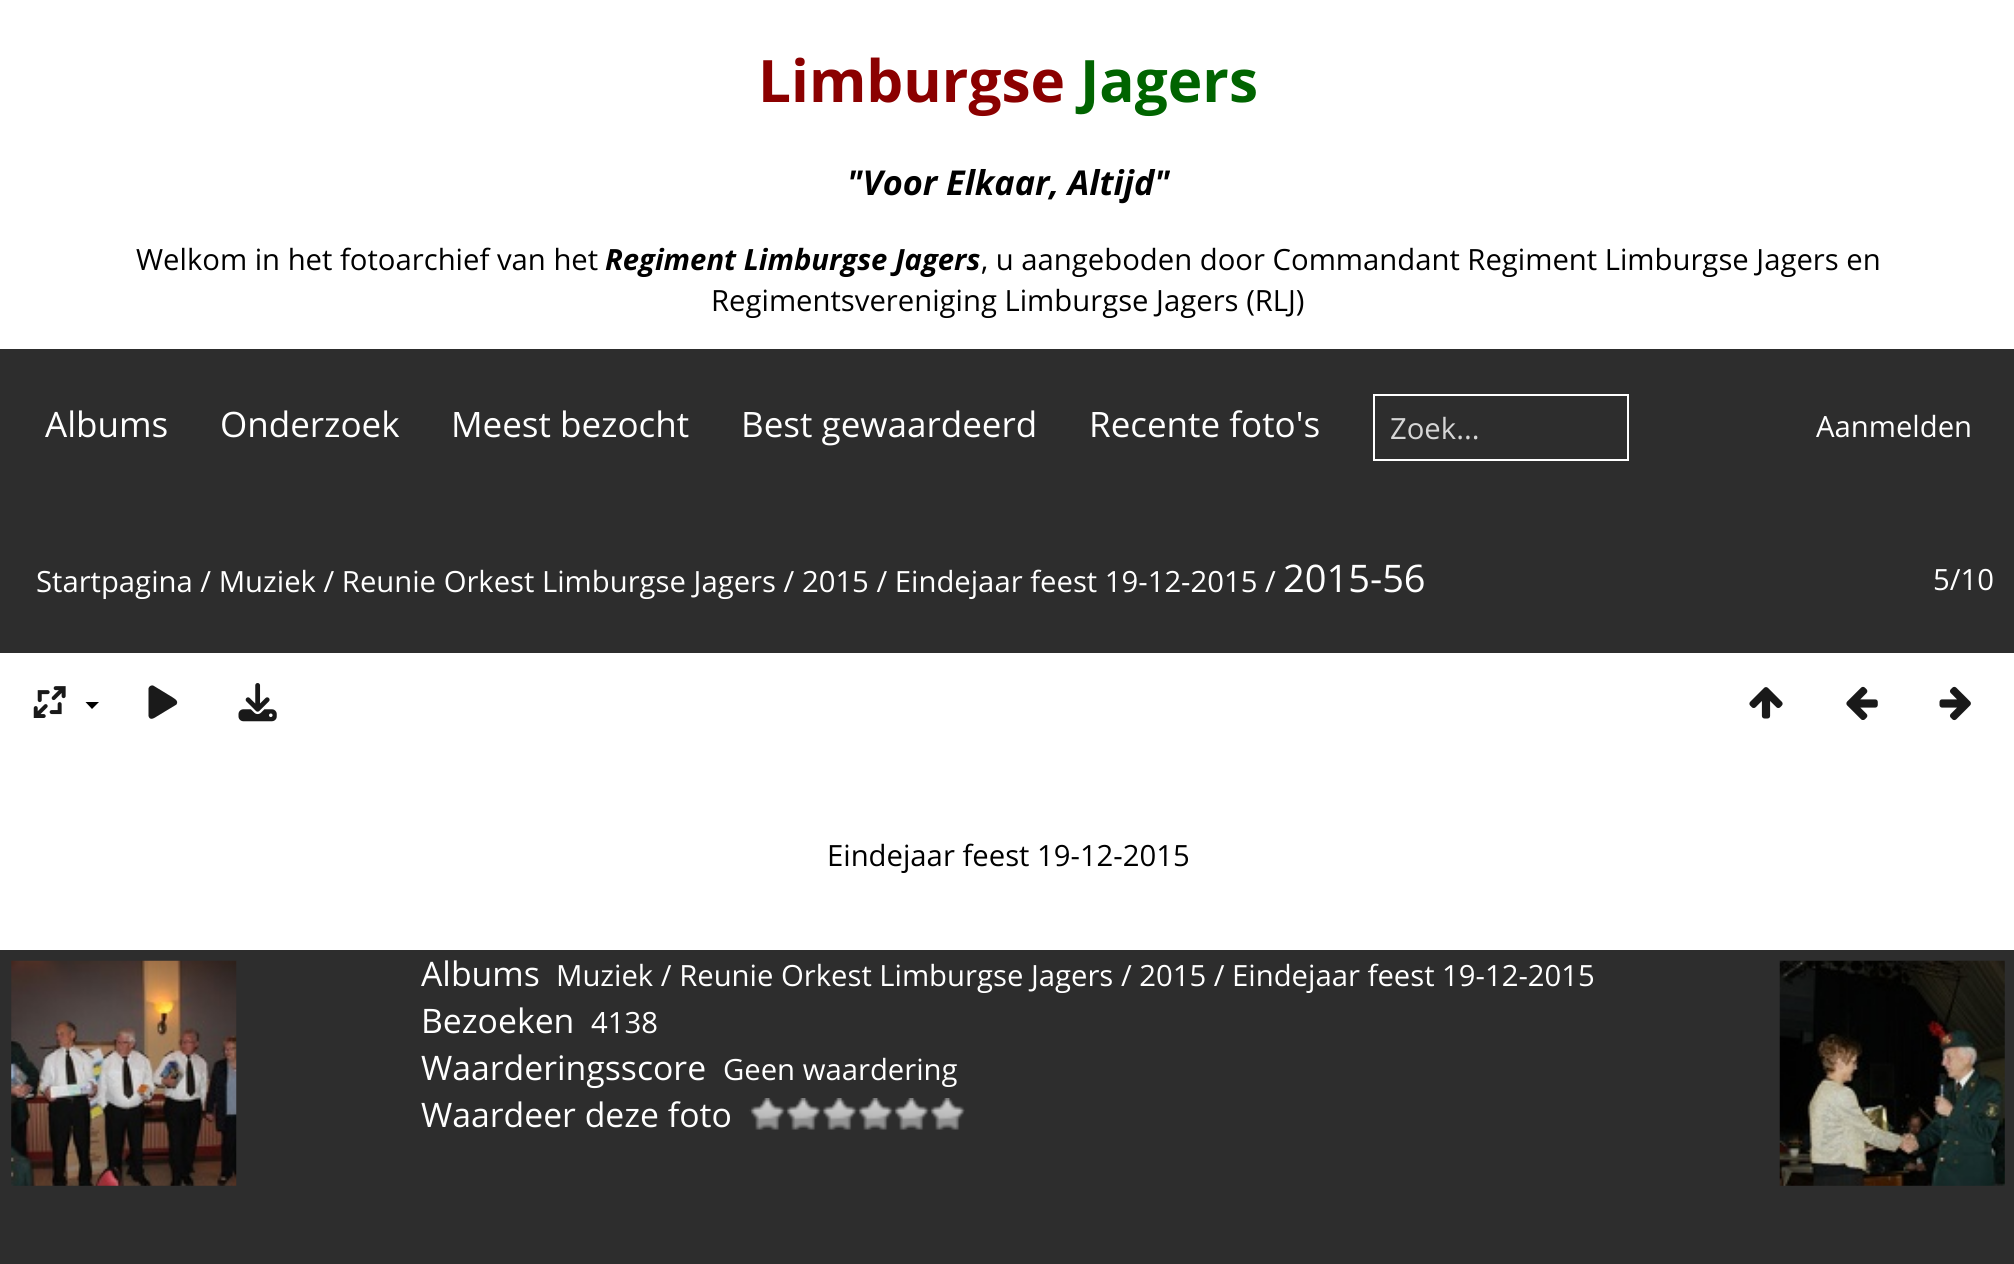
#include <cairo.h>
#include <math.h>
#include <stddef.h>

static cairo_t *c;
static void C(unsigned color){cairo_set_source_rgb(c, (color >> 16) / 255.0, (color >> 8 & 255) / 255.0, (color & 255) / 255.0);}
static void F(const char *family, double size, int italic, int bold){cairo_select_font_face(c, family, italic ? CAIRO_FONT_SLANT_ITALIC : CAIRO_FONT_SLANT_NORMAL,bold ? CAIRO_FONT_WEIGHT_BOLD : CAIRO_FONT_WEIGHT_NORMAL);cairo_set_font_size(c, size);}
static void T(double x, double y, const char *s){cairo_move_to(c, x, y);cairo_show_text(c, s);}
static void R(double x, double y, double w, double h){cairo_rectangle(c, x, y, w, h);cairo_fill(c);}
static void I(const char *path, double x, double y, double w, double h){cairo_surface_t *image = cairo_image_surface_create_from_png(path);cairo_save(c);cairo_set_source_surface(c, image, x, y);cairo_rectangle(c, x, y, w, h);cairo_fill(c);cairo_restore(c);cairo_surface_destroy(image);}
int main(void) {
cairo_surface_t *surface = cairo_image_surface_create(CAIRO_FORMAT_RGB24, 2014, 1264);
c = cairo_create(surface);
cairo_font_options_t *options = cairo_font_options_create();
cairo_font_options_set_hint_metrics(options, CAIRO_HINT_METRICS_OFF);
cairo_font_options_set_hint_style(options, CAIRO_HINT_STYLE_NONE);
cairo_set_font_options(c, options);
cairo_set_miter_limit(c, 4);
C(0xffffff);
cairo_paint(c);
F("Open Sans",58.5,0,1);
C(0x8b0000);
T(758,102,"Limburgse");
C(0x006400);
T(1080,102,"Jagers");
F("Open Sans",34.25,1,1);
C(0x000000);
T(847,195,"\"Voor Elkaar, Altijd\"");
F("Open Sans",29.25,0,0);
T(136,270,"Welkom in het fotoarchief van het");
F("Open Sans",29.25,1,1);
T(605,270,"Regiment Limburgse Jagers");
F("Open Sans",29.25,0,0);
T(981,270,", u aangeboden door Commandant Regiment Limburgse Jagers en");
T(711,311,"Regimentsvereniging Limburgse Jagers (RLJ)");
C(0x2d2d2d);
R(0,349,2014,304);
F("Open Sans",35,0,0);
C(0xffffff);
T(45,437,"Albums");
T(220,437,"Onderzoek");
T(451,437,"Meest bezocht");
T(741,437,"Best gewaardeerd");
T(1089,437,"Recente foto's");
cairo_rectangle(c,1374,395,254,65);
cairo_stroke(c);
F("Open Sans",29.25,0,0);
C(0xd6d6d6);
T(1390,439,"Zoek...");
C(0xffffff);
T(1816,437,"Aanmelden");
T(36,592,"Startpagina / Muziek / Reunie Orkest Limburgse Jagers / 2015 / Eindejaar feest 19-12-2015 /");
F("Open Sans",38,0,0);
T(1283,592,"2015-56");
F("Open Sans",29.25,0,0);
T(1933,590,"5/10");
I("1.png",33,686,33,32);
C(0x000000);
cairo_new_path(c);
cairo_move_to(c,85.5,702);
cairo_line_to(c,99,702);
cairo_line_to(c,92,709);
cairo_close_path(c);
cairo_fill(c);
C(0x1a1a1a);
cairo_new_path(c);
cairo_move_to(c,154,686);
cairo_curve_to(c,152,684.5,149,686,148.5,688.5);
cairo_line_to(c,148.5,716);
cairo_curve_to(c,150,721.5,155,717.5,157.5,716);
cairo_line_to(c,176.5,704.5);
cairo_curve_to(c,179,700.5,174,698.5,172,697);
cairo_close_path(c);
cairo_fill(c);
I("2.png",238,683,39,39);
I("3.png",1749,687,34,32);
I("4.png",1846,686,32,34);
I("5.png",1939,686,32,35);
C(0x000000);
T(827,866,"Eindejaar feest 19-12-2015");
C(0x2d2d2d);
R(0,950,2014,314);
I("6.png",11,960,226,226);
I("7.png",1779,960,226,226);
F("Open Sans",33.75,0,0);
C(0xffffff);
T(421,986,"Albums");
F("Open Sans",29.25,0,0);
T(556,986,"Muziek / Reunie Orkest Limburgse Jagers / 2015 / Eindejaar feest 19-12-2015");
F("Open Sans",33.75,0,0);
T(421,1033,"Bezoeken");
F("Open Sans",29.25,0,0);
T(591,1033,"4138");
F("Open Sans",33.75,0,0);
T(421,1080,"Waarderingsscore");
F("Open Sans",29.25,0,0);
T(723,1080,"Geen waardering");
F("Open Sans",33.75,0,0);
T(421,1127,"Waardeer deze foto");
I("8.png",749,1098,36,32);
I("9.png",785,1098,36,32);
I("10.png",821,1098,36,32);
I("9.png",857,1098,36,32);
I("9.png",893,1098,36,32);
I("9.png",929,1098,36,32);
cairo_surface_write_to_png(surface, "o.png");
cairo_font_options_destroy(options);
cairo_destroy(c);
cairo_surface_destroy(surface);
return 0;
}
